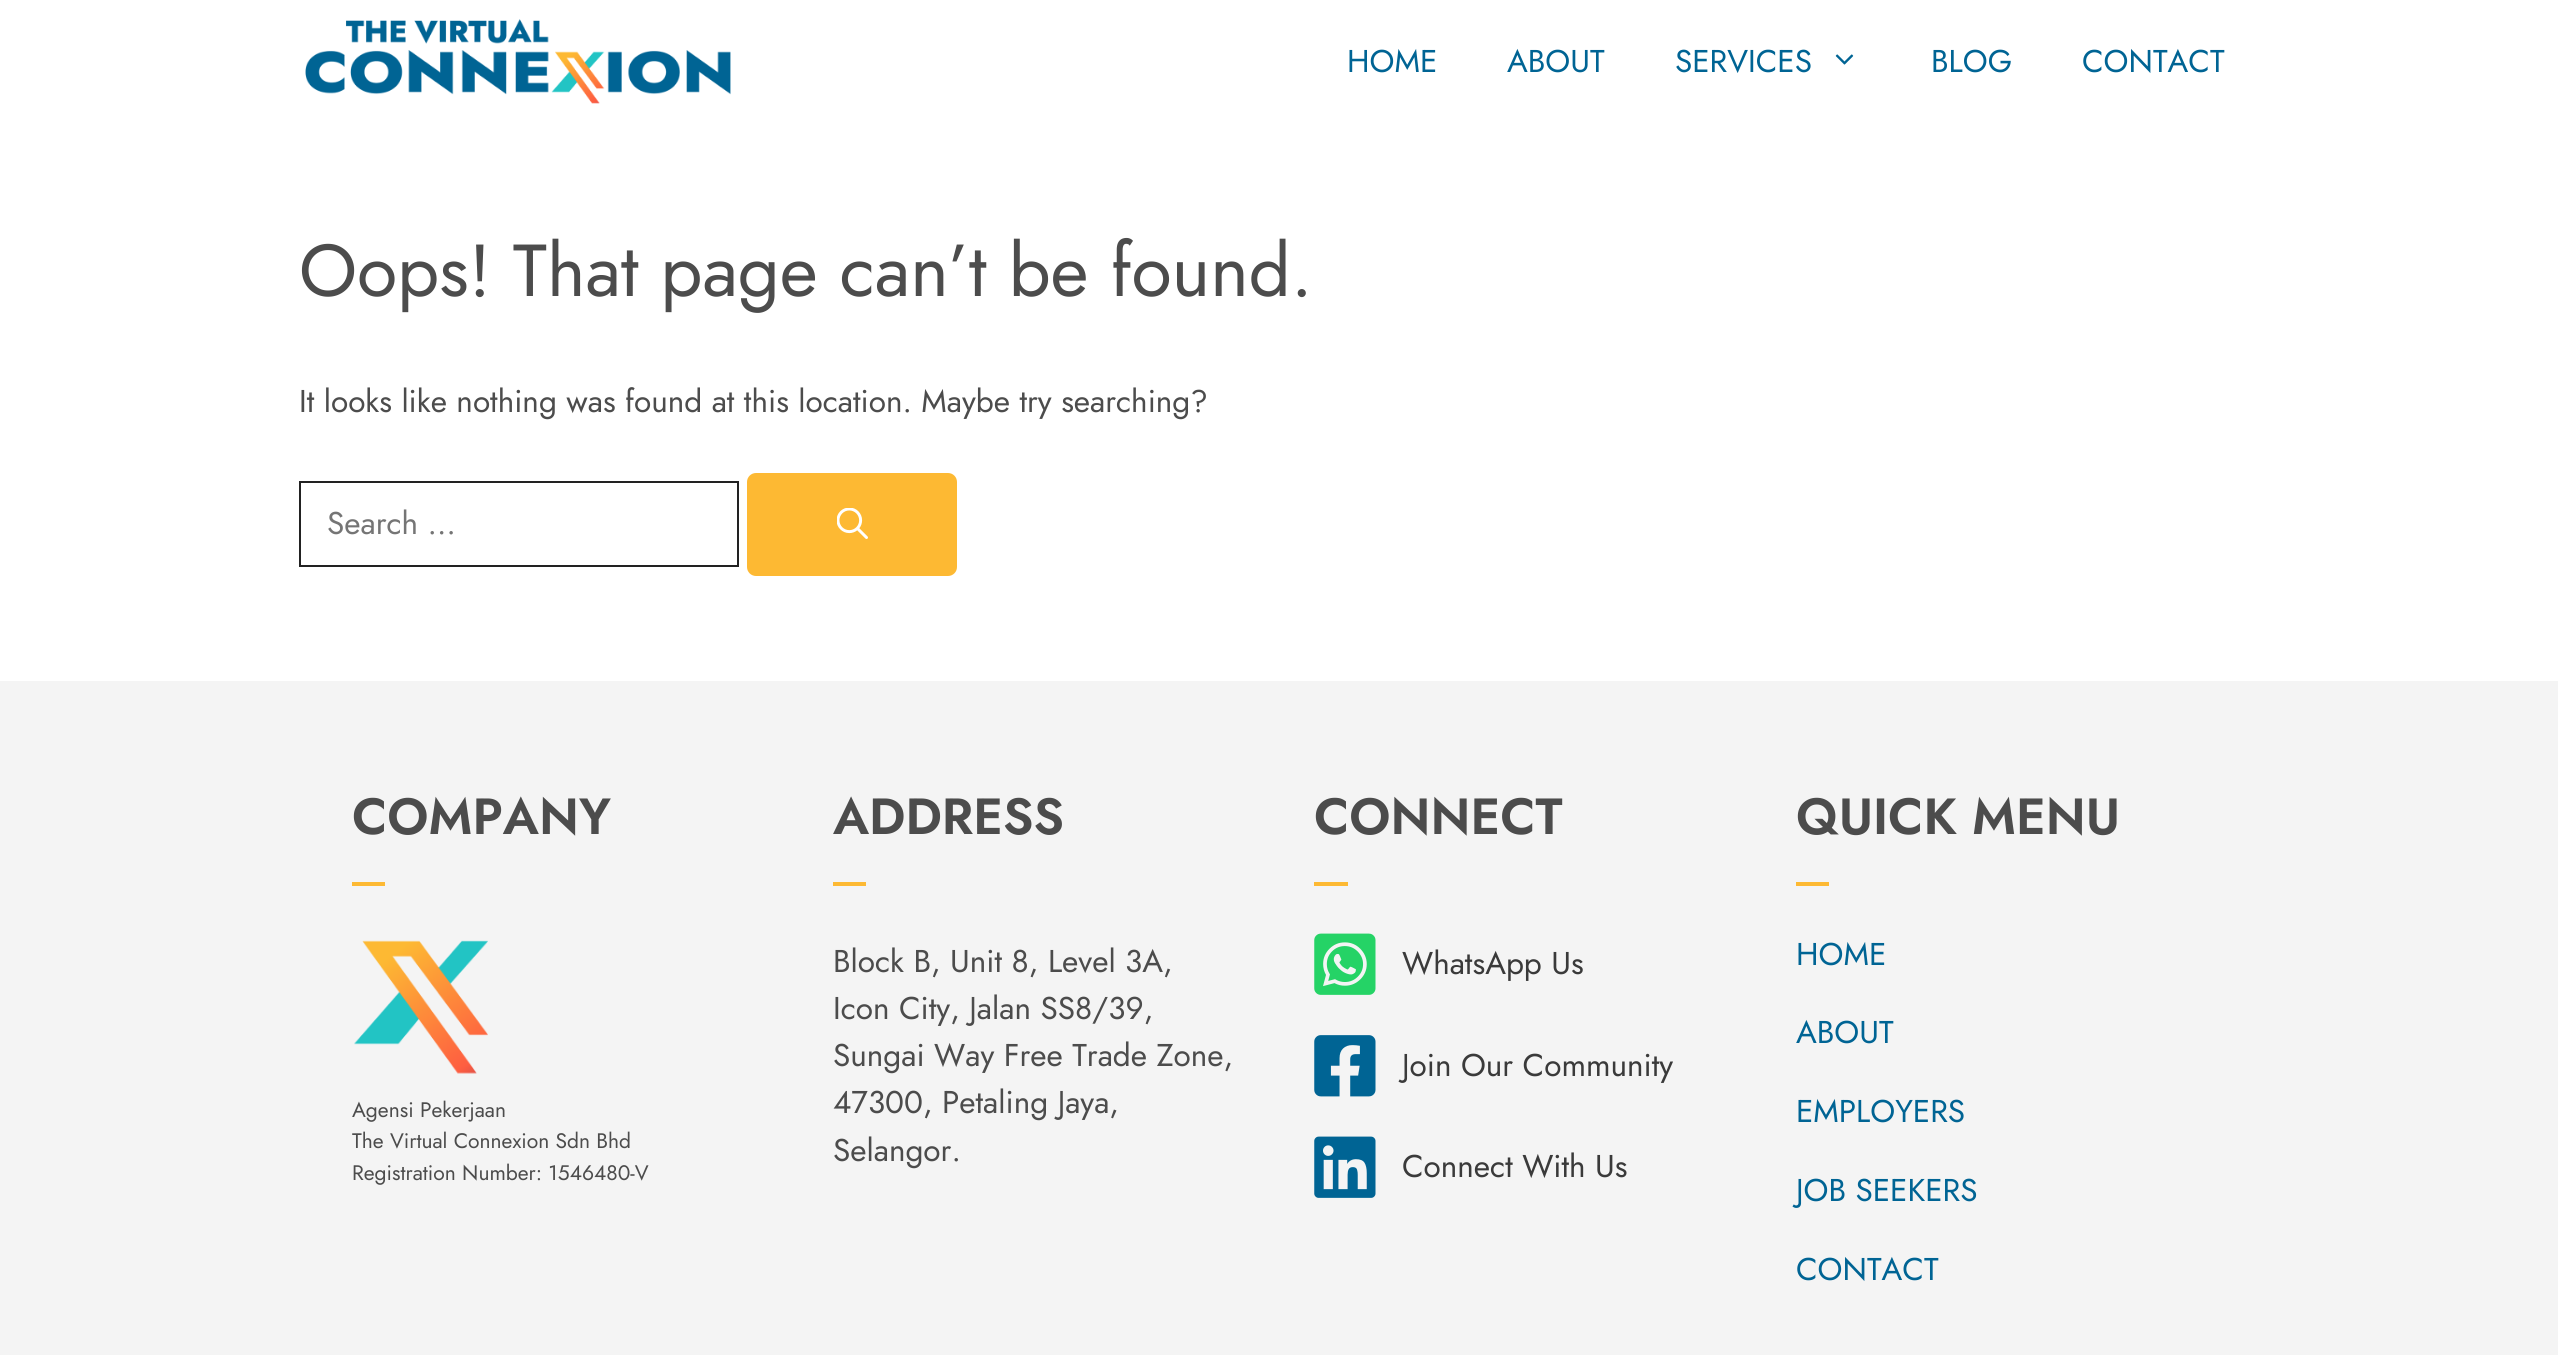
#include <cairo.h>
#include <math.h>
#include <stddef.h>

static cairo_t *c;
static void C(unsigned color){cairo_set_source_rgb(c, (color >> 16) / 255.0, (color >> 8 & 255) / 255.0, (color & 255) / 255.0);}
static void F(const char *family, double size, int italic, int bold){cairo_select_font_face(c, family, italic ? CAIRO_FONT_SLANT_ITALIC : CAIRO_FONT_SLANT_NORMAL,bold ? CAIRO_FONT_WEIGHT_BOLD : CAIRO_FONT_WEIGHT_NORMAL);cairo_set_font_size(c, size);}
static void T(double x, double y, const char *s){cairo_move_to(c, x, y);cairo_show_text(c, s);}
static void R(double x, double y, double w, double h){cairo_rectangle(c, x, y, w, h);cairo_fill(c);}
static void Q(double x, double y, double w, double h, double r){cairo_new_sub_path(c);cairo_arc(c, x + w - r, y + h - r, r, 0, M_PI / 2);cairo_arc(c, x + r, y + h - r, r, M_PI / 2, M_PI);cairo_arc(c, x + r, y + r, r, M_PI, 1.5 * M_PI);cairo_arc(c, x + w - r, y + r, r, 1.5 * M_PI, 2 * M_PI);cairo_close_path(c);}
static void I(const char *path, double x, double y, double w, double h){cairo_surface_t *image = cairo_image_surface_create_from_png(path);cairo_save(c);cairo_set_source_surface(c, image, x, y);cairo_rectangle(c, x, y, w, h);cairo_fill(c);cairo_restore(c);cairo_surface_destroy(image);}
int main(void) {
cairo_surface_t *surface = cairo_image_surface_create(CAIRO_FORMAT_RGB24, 2558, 1355);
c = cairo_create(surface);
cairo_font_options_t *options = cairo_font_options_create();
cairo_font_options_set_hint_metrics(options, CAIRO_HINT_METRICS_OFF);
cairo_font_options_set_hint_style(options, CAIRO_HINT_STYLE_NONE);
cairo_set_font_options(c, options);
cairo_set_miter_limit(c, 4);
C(0xffffff);
cairo_paint(c);
I("1.png",305,19,426,85);
F("Jost",31.5,0,0);
C(0x006494);
T(1347,72,"HOME");
T(1507,72,"ABOUT");
T(1675,72,"SERVICES");
I("2.png",1835,54,19,11);
T(1931,72,"BLOG");
T(2082,72,"CONTACT");
F("Jost",73.5,0,0);
C(0x4c4c4c);
T(299,296,"Oops! That page can’t be found.");
F("Jost",31.5,0,0);
T(299,412,"It looks like nothing was found at this location. Maybe try searching?");
cairo_rectangle(c,300,482,438,84);
C(0x222222);
cairo_stroke(c);
C(0x757575);
T(327,534,"Search …");
C(0xfdb933);
Q(747,473,210,103,9);
cairo_fill(c);
I("3.png",837,508,31,31);
C(0xf4f4f4);
R(0,681,2558,674);
F("Jost SemiBold",50.75,0,0);
C(0x4c4c4c);
T(352,834,"COMPANY");
C(0xfdb933);
R(352,882,33,4);
I("4.png",354,940,134,134);
F("Jost",21,0,0);
C(0x4c4c4c);
T(352,1117,"Agensi Pekerjaan");
T(352,1148,"The Virtual Connexion Sdn Bhd");
T(352,1180,"Registration Number: 1546480-V");
F("Jost SemiBold",50.75,0,0);
T(833,834,"ADDRESS");
C(0xfdb933);
R(833,882,33,4);
F("Jost",31.5,0,0);
C(0x4c4c4c);
T(833,972,"Block B, Unit 8, Level 3A,");
T(833,1019,"Icon City, Jalan SS8/39,");
T(833,1066,"Sungai Way Free Trade Zone,");
T(833,1113,"47300, Petaling Jaya,");
T(833,1161,"Selangor.");
F("Jost SemiBold",50.75,0,0);
T(1314,834,"CONNECT");
C(0xfdb933);
R(1314,882,34,4);
I("5.png",1314,933,62,62);
F("Jost",31.5,0,0);
C(0x3a3a3a);
T(1402,974,"WhatsApp Us");
I("6.png",1314,1035,62,62);
T(1402,1076,"Join Our Community");
I("7.png",1314,1136,62,62);
T(1402,1177,"Connect With Us");
F("Jost SemiBold",50.75,0,0);
C(0x4c4c4c);
T(1796,834,"QUICK MENU");
C(0xfdb933);
R(1796,882,33,4);
F("Jost",31.5,0,0);
C(0x006494);
T(1796,965,"HOME");
T(1796,1043,"ABOUT");
T(1796,1122,"EMPLOYERS");
T(1796,1201,"JOB SEEKERS");
T(1796,1280,"CONTACT");
cairo_surface_write_to_png(surface, "o.png");
cairo_font_options_destroy(options);
cairo_destroy(c);
cairo_surface_destroy(surface);
return 0;
}
